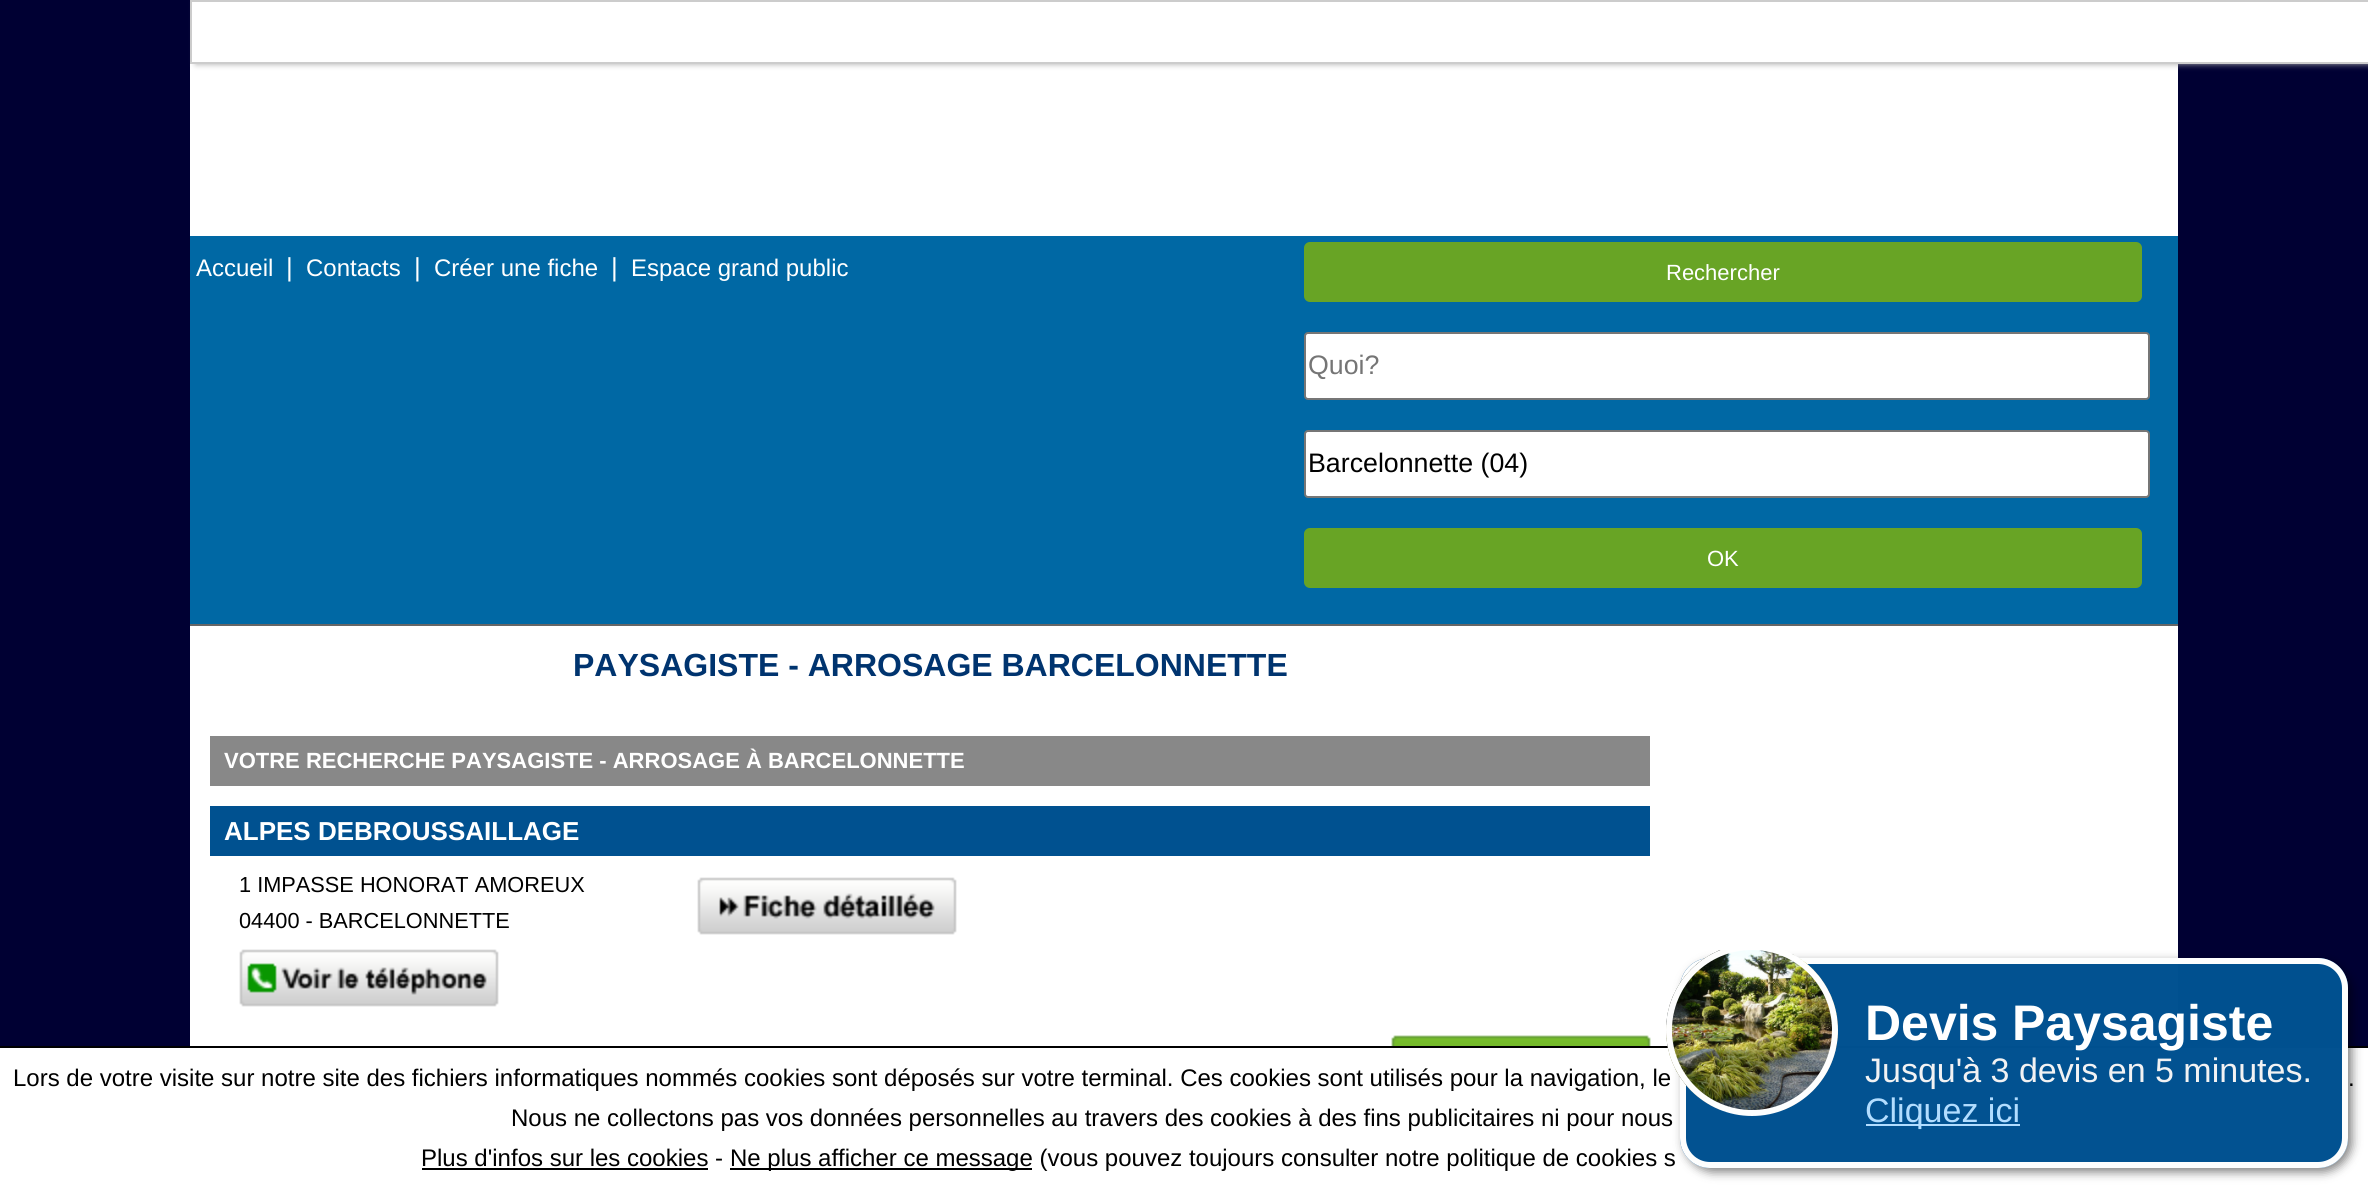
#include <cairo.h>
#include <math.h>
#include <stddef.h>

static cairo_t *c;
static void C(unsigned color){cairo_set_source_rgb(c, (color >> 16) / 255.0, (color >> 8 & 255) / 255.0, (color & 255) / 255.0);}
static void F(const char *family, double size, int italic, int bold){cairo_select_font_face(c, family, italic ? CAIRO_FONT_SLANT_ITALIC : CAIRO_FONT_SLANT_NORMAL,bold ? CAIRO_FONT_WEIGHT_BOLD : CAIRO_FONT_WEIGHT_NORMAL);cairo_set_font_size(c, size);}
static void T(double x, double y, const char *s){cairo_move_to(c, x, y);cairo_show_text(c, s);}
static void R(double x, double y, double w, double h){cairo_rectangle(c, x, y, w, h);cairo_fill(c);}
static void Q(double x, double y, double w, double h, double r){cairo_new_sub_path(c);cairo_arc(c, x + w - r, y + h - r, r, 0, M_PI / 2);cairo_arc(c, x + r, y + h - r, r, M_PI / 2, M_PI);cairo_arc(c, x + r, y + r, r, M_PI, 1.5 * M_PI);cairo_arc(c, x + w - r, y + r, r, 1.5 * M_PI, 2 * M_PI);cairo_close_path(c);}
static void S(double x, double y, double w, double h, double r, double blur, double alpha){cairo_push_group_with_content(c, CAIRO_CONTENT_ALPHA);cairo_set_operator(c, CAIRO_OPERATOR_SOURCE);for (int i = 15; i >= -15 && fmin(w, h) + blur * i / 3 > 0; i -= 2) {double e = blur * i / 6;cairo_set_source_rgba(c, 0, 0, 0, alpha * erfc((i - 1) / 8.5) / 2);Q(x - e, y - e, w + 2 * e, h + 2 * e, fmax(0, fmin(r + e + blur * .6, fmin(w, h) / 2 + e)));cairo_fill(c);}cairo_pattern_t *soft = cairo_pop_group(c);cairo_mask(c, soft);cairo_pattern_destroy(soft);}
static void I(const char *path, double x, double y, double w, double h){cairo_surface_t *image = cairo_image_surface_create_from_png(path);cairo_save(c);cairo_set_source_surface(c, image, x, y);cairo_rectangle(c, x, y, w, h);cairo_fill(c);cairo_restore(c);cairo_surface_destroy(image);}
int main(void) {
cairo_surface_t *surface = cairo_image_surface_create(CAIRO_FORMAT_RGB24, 2368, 1188);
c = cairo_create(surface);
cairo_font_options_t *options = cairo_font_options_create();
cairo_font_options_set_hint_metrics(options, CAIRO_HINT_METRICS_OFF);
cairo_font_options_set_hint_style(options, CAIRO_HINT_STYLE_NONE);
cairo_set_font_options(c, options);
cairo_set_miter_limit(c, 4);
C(0x000033);
cairo_paint(c);
C(0xffffff);
R(190,64,1988,982);
C(0xaaaaaa);
S(196,0,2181,64,0,3,1);
C(0xffffff);
cairo_rectangle(c,191,1,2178,62);
cairo_fill_preserve(c);
C(0xcccccc);
cairo_stroke(c);
C(0x0068a4);
R(190,236,1988,388);
C(0x666666);
R(190,624,1988,2);
F("Liberation Sans",24,0,0);
C(0xffffff);
T(196,276,"Accueil");
F("Liberation Sans",26,0,0);
T(286,276,"|");
F("Liberation Sans",24,0,0);
T(306,276,"Contacts");
F("Liberation Sans",26,0,0);
T(414,276,"|");
F("Liberation Sans",24,0,0);
T(434,276,"Créer une fiche");
F("Liberation Sans",26,0,0);
T(611,276,"|");
F("Liberation Sans",24,0,0);
T(631,276,"Espace grand public");
C(0x68a425);
Q(1304,242,838,60,6);
cairo_fill(c);
F("Liberation Sans",22,0,0);
C(0xffffff);
T(1666,280,"Rechercher");
Q(1305,333,844,66,3);
cairo_fill_preserve(c);
C(0x767676);
cairo_stroke(c);
F("Liberation Sans",26.75,0,0);
C(0x757575);
T(1308,374,"Quoi?");
C(0xffffff);
Q(1305,431,844,66,3);
cairo_fill_preserve(c);
C(0x767676);
cairo_stroke(c);
C(0x000000);
T(1308,472,"Barcelonnette (04)");
C(0x68a425);
Q(1304,528,838,60,6);
cairo_fill(c);
F("Liberation Sans",22,0,0);
C(0xffffff);
T(1707,566,"OK");
F("Liberation Sans",32,0,1);
C(0x00346f);
T(573,676,"PAYSAGISTE - ARROSAGE BARCELONNETTE");
C(0x888888);
R(210,736,1440,50);
F("Liberation Sans",22,0,1);
C(0xffffff);
T(224,768,"VOTRE RECHERCHE PAYSAGISTE - ARROSAGE À BARCELONNETTE");
C(0x005190);
R(210,806,1440,50);
F("Liberation Sans",26,0,1);
C(0xffffff);
T(224,840,"ALPES DEBROUSSAILLAGE");
F("Liberation Sans",21.75,0,0);
C(0x000000);
T(239,892,"1 IMPASSE HONORAT AMOREUX");
T(239,928,"04400 - BARCELONNETTE");
I("1.png",239,949,260,58);
I("2.png",697,877,260,58);
I("3.png",1391,1035,260,11);
C(0xffffff);
R(0,1048,2368,140);
C(0x000000);
R(0,1046,2368,2);
cairo_save(c);
cairo_set_fill_rule(c,CAIRO_FILL_RULE_EVEN_ODD);
cairo_new_path(c);
cairo_move_to(c,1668,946);
cairo_line_to(c,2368,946);
cairo_line_to(c,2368,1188);
cairo_line_to(c,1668,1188);
cairo_close_path(c);
cairo_move_to(c,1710,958);
cairo_line_to(c,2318,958);
cairo_curve_to(c,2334.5,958,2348,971.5,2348,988);
cairo_line_to(c,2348,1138);
cairo_curve_to(c,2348,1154.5,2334.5,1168,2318,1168);
cairo_line_to(c,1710,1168);
cairo_curve_to(c,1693.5,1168,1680,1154.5,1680,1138);
cairo_line_to(c,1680,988);
cairo_curve_to(c,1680,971.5,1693.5,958,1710,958);
cairo_close_path(c);
cairo_clip(c);
C(0x000000);
S(1684,962,668,210,30,5,.5);
cairo_restore(c);
cairo_set_source_rgba(c,0,0.318,0.565,0.99);
Q(1680,958,668,210,30);
cairo_fill(c);
Q(1683,961,662,204,27);
cairo_set_source_rgba(c,1,1,1,0.99);
cairo_set_line_width(c,6);
cairo_stroke(c);
F("Liberation Sans",24,0,0);
C(0x000000);
T(13,1086,"Lors de votre visite sur notre site des fichiers informatiques nommés cookies sont déposés sur votre terminal. Ces cookies sont utilisés pour la navigation, le");
T(511,1126,"Nous ne collectons pas vos données personnelles au travers des cookies à des fins publicitaires ni pour nous");
I("4.png",1666,950,172,160);
cairo_arc(c,1752,1030,83,0,2 * M_PI);
cairo_set_source_rgba(c,1,1,1,0.99);
cairo_stroke(c);
F("Liberation Sans",50,0,1);
C(0xffffff);
T(1865,1040,"Devis");
T(2012,1040,"Paysagiste");
F("Liberation Sans",34,0,0);
C(0xf2f2f3);
T(1865,1082,"Jusqu'à 3 devis en 5 minutes.");
C(0xb2ddff);
R(1866,1124,154,2);
T(1865,1122,"Cliquez ici");
F("Liberation Sans",24,0,0);
C(0x000000);
T(2348,1086,".");
T(421,1166,"Plus d'infos sur les cookies -");
R(422,1168,286,2);
R(730,1168,302,2);
T(730,1166,"Ne plus afficher ce message (vous pouvez toujours consulter notre politique de cookies s");
cairo_surface_write_to_png(surface, "o.png");
cairo_font_options_destroy(options);
cairo_destroy(c);
cairo_surface_destroy(surface);
return 0;
}
